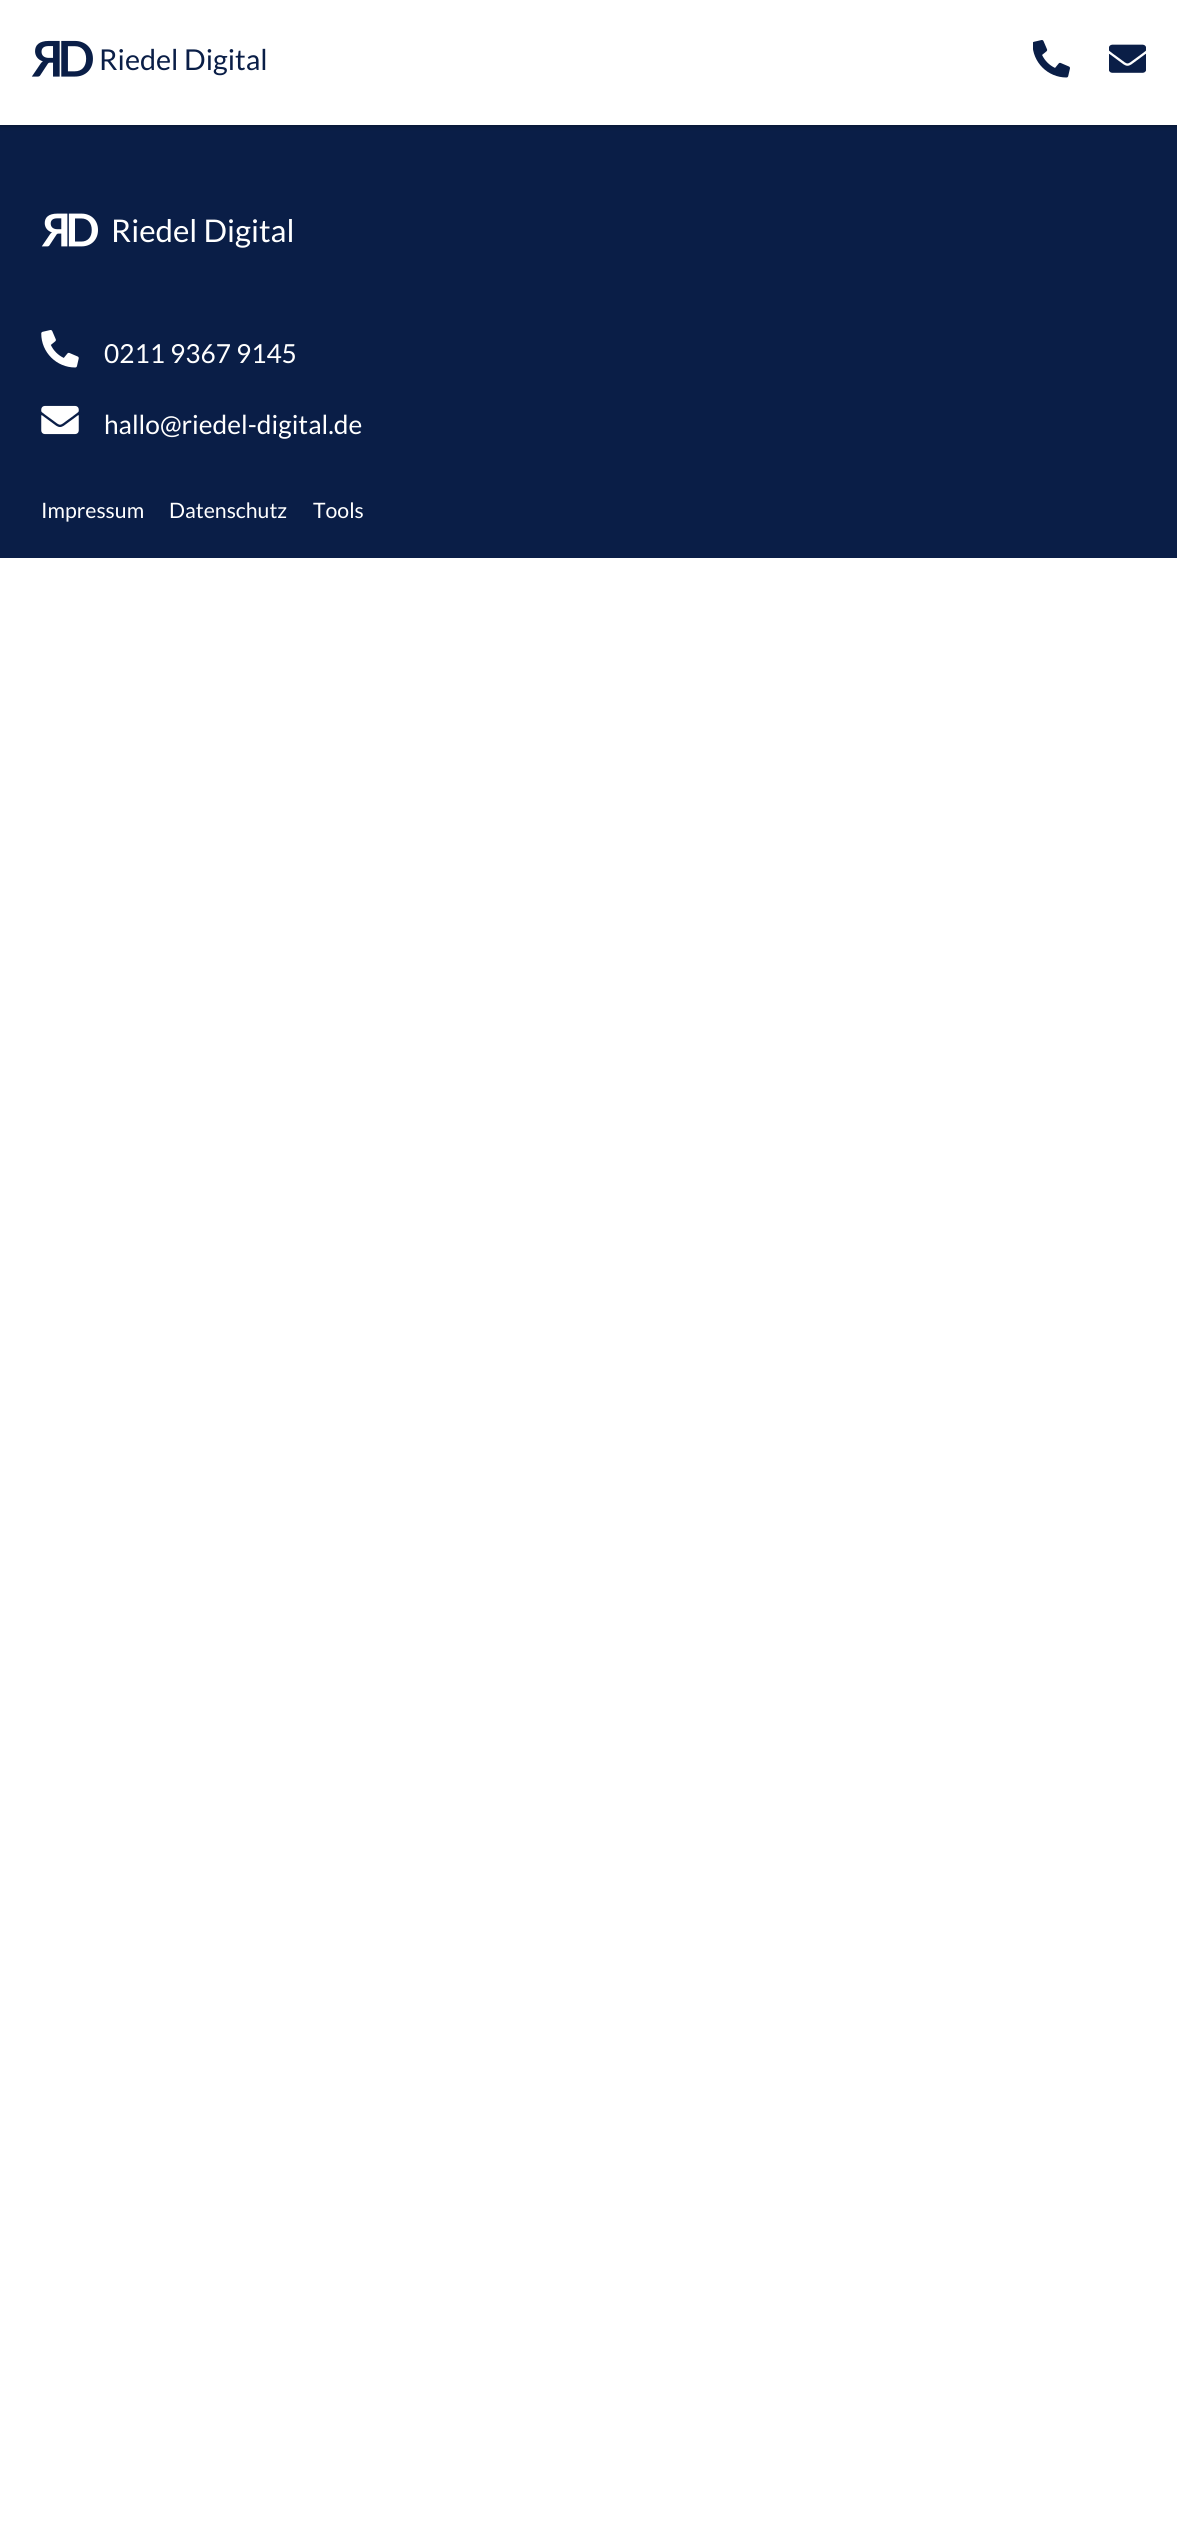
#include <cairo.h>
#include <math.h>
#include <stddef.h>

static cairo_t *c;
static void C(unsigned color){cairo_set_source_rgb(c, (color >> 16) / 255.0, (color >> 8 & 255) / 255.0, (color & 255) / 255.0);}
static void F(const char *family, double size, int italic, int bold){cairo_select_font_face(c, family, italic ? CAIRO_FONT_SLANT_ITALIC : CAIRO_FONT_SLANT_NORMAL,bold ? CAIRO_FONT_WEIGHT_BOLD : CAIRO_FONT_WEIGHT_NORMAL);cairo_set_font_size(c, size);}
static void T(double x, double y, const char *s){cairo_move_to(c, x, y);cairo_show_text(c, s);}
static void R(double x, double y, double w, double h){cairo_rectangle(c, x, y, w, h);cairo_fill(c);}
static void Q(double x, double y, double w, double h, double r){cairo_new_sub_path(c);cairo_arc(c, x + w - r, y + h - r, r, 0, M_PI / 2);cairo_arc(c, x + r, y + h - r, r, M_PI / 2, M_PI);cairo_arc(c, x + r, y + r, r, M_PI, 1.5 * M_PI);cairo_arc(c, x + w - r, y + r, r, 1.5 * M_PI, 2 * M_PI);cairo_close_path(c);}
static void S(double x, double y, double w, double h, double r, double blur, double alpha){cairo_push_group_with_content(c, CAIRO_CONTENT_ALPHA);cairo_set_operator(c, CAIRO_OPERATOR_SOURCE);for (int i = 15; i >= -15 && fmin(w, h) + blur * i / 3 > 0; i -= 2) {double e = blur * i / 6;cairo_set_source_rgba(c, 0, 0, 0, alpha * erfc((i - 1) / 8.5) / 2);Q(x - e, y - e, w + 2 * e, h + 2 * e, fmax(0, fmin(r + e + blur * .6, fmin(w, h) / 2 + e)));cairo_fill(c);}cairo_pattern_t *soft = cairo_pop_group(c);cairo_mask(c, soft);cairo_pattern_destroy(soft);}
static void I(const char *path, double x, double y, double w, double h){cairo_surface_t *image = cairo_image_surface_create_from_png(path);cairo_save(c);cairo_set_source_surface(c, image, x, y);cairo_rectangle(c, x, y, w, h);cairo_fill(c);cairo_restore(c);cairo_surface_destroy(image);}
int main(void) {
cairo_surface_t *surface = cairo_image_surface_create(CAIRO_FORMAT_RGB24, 1177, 2532);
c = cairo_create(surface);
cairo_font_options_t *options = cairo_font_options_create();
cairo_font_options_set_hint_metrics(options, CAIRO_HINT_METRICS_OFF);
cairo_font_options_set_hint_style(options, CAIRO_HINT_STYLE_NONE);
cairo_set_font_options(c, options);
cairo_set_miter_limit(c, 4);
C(0xffffff);
cairo_paint(c);
C(0x0a1e47);
R(0,125,1177,433);
C(0x000000);
S(0,0,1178,125,0,2.5,.5);
C(0xffffff);
R(0,0,1177,125);
I("1.png",31,40,62,37);
F("Lato",28.75,0,0);
C(0x0a1e47);
T(99,70,"Riedel Digital");
I("2.png",1033,40,37,38);
I("3.png",1109,44,37,29);
I("4.png",41,213,57,34);
F("Lato",31.25,0,0);
C(0xffffff);
T(111,242,"Riedel Digital");
I("5.png",41,330,38,38);
F("Lato",26.25,0,0);
T(104,363,"0211 9367 9145");
I("6.png",41,405,38,30);
T(104,434,"hallo@riedel-digital.de");
F("Lato",21.25,0,0);
T(41,518,"Impressum");
T(169,518,"Datenschutz");
T(313,518,"Tools");
cairo_surface_write_to_png(surface, "o.png");
cairo_font_options_destroy(options);
cairo_destroy(c);
cairo_surface_destroy(surface);
return 0;
}
